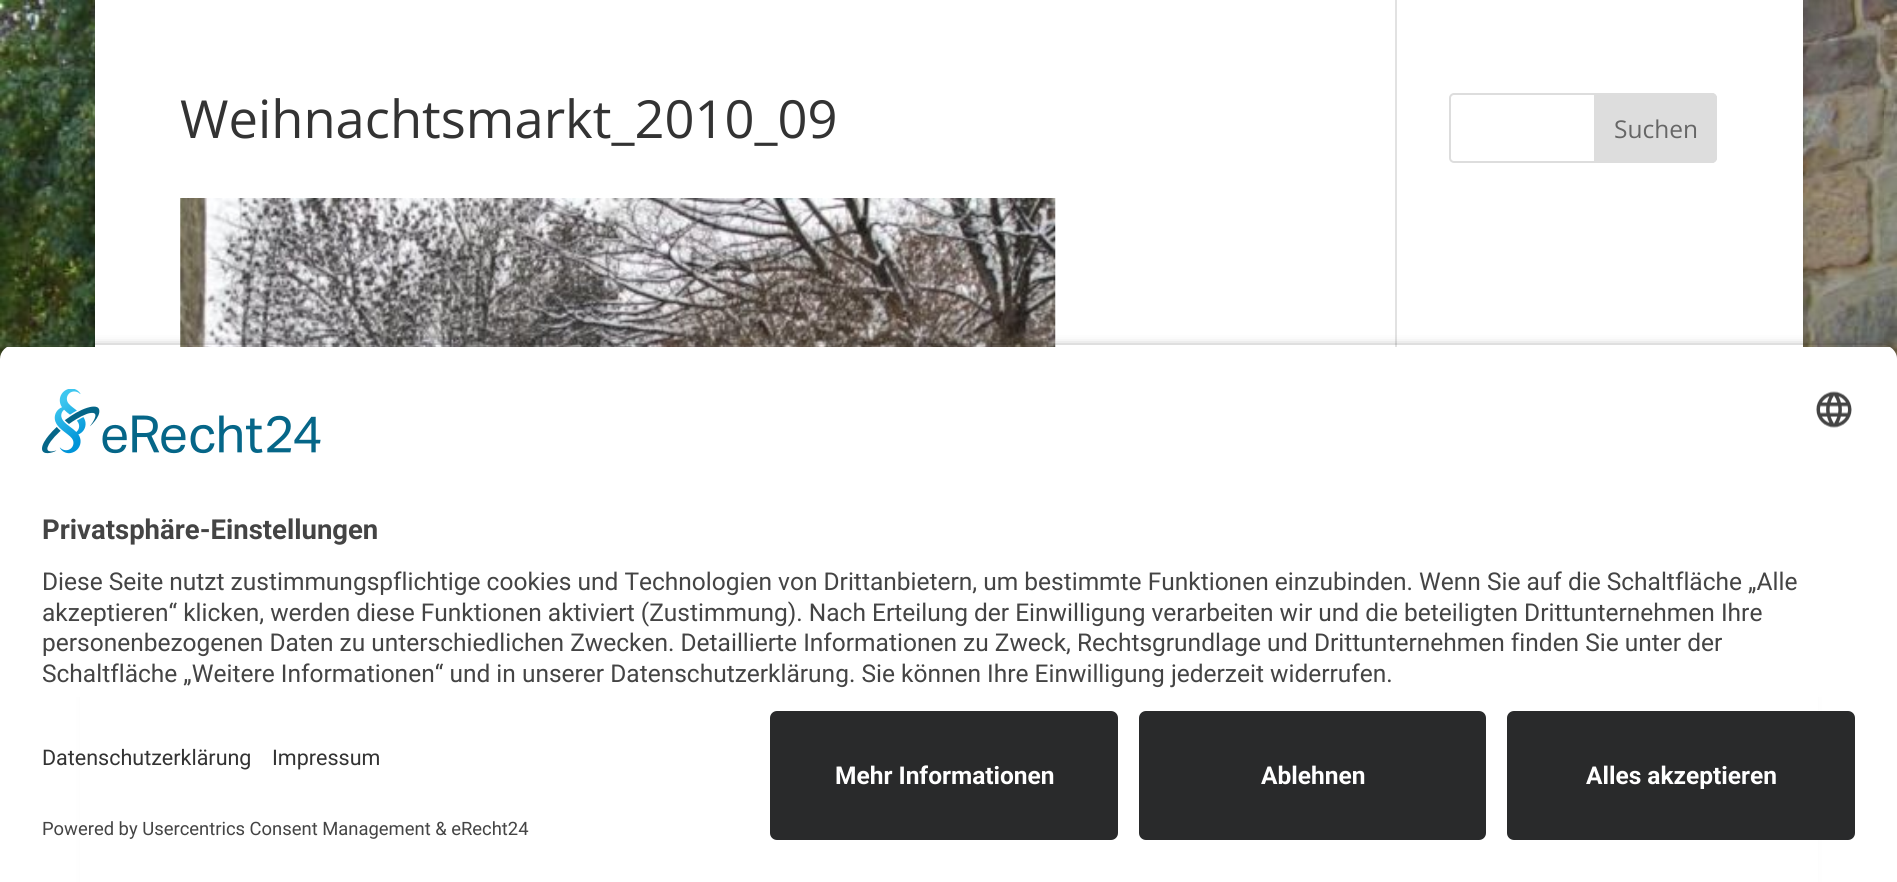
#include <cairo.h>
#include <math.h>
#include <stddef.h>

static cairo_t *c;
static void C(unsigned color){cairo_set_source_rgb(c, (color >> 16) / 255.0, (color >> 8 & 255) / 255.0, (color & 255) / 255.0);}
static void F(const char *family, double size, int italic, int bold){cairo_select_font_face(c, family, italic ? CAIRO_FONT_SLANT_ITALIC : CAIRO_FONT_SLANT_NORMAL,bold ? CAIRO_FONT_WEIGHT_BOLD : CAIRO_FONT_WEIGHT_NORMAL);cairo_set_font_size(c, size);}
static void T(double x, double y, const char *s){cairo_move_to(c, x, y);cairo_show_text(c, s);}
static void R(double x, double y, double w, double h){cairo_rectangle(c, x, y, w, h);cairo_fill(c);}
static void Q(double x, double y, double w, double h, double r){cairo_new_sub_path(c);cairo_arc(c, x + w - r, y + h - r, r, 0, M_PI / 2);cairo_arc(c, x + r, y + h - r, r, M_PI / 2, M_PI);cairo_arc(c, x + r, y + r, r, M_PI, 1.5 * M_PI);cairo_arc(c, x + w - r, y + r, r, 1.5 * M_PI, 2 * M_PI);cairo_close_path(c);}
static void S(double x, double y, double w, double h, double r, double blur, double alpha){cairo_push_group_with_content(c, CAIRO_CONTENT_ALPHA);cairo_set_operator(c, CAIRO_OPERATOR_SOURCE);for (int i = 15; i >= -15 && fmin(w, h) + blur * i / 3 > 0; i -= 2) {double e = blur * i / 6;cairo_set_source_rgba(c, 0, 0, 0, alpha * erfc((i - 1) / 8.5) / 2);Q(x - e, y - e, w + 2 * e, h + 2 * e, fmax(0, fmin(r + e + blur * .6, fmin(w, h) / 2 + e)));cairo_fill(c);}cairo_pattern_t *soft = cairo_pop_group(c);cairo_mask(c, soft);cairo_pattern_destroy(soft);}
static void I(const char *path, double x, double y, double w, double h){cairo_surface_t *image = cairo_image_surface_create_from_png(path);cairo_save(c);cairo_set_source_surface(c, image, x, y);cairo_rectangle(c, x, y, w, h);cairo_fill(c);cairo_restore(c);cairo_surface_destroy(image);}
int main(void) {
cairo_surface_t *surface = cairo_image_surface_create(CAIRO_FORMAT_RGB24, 1897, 882);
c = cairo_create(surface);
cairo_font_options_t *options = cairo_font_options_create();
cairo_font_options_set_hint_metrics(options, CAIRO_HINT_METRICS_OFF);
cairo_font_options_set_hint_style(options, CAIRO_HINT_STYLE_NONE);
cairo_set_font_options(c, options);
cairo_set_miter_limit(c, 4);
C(0xffffff);
cairo_paint(c);
I("1.png",0,0,1897,359);
C(0x000000);
S(95,-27,1708,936,0,9,.2);
C(0xffffff);
R(95,0,1708,347);
C(0xe2e2e2);
R(1395,0,2,347);
F("Open Sans",52.5,0,0);
C(0x333333);
T(180,138,"Weihnachtsmarkt_2010_09");
I("2.png",180,198,876,149);
Q(1450,94,266,68,4);
C(0xdddddd);
cairo_stroke(c);
cairo_new_path(c);
cairo_move_to(c,1595,94);
cairo_line_to(c,1712,94);
cairo_curve_to(c,1714,94,1716,96,1716,98);
cairo_line_to(c,1716,158);
cairo_curve_to(c,1716,160,1714,162,1712,162);
cairo_line_to(c,1595,162);
cairo_close_path(c);
cairo_fill_preserve(c);
cairo_stroke(c);
F("Open Sans",24.5,0,0);
C(0x666666);
T(1614,138,"Suchen");
cairo_save(c);
cairo_set_fill_rule(c,CAIRO_FILL_RULE_EVEN_ODD);
cairo_new_path(c);
cairo_move_to(c,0,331);
cairo_line_to(c,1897,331);
cairo_line_to(c,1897,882);
cairo_line_to(c,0,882);
cairo_close_path(c);
cairo_move_to(c,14,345);
cairo_line_to(c,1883,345);
cairo_curve_to(c,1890.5,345,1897,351.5,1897,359);
cairo_line_to(c,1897,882);
cairo_line_to(c,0,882);
cairo_line_to(c,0,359);
cairo_curve_to(c,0,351.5,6.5,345,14,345);
cairo_close_path(c);
cairo_clip(c);
C(0x000000);
S(0,350,1897,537,14,6,.8);
cairo_restore(c);
cairo_save(c);
cairo_new_path(c);
cairo_move_to(c,14,345);
cairo_line_to(c,1883,345);
cairo_curve_to(c,1890.5,345,1897,351.5,1897,359);
cairo_line_to(c,1897,697);
cairo_line_to(c,0,697);
cairo_line_to(c,0,359);
cairo_curve_to(c,0,351.5,6.5,345,14,345);
cairo_close_path(c);
cairo_clip(c);
C(0xffffff);
R(0,347,1897,350);
cairo_restore(c);
I("3.png",42,389,279,65);
I("4.png",1816,391,36,37);
F("Roboto",27.5,0,1);
C(0x444444);
T(42,539,"Privatsphäre-Einstellungen");
F("Roboto",24.5,0,0);
T(42,590,"Diese Seite nutzt zustimmungspflichtige cookies und Technologien von Drittanbietern, um bestimmte Funktionen einzubinden. Wenn Sie auf die Schaltfläche „Alle");
T(42,621,"akzeptieren“ klicken, werden diese Funktionen aktiviert (Zustimmung). Nach Erteilung der Einwilligung verarbeiten wir und die beteiligten Drittunternehmen Ihre");
T(42,651,"personenbezogenen Daten zu unterschiedlichen Zwecken. Detaillierte Informationen zu Zweck, Rechtsgrundlage und Drittunternehmen finden Sie unter der");
T(42,682,"Schaltfläche „Weitere Informationen“ und in unserer Datenschutzerklärung. Sie können Ihre Einwilligung jederzeit widerrufen.");
C(0xffffff);
R(80,697,1738,185);
F("Roboto",21.5,0,0);
C(0x333333);
T(42,765,"Datenschutzerklärung");
T(272,765,"Impressum");
F("Roboto",18.4,0,0);
C(0x444444);
T(42,835,"Powered by Usercentrics Consent Management & eRecht24");
C(0x292a2b);
Q(770,711,348,129,7);
cairo_fill(c);
F("Roboto",24.5,0,1);
C(0xffffff);
T(835,784,"Mehr Informationen");
C(0x292a2b);
Q(1139,711,347,129,7);
cairo_fill(c);
C(0xffffff);
T(1261,784,"Ablehnen");
C(0x292a2b);
Q(1507,711,348,129,7);
cairo_fill(c);
C(0xffffff);
T(1586,784,"Alles akzeptieren");
cairo_surface_write_to_png(surface, "o.png");
cairo_font_options_destroy(options);
cairo_destroy(c);
cairo_surface_destroy(surface);
return 0;
}
